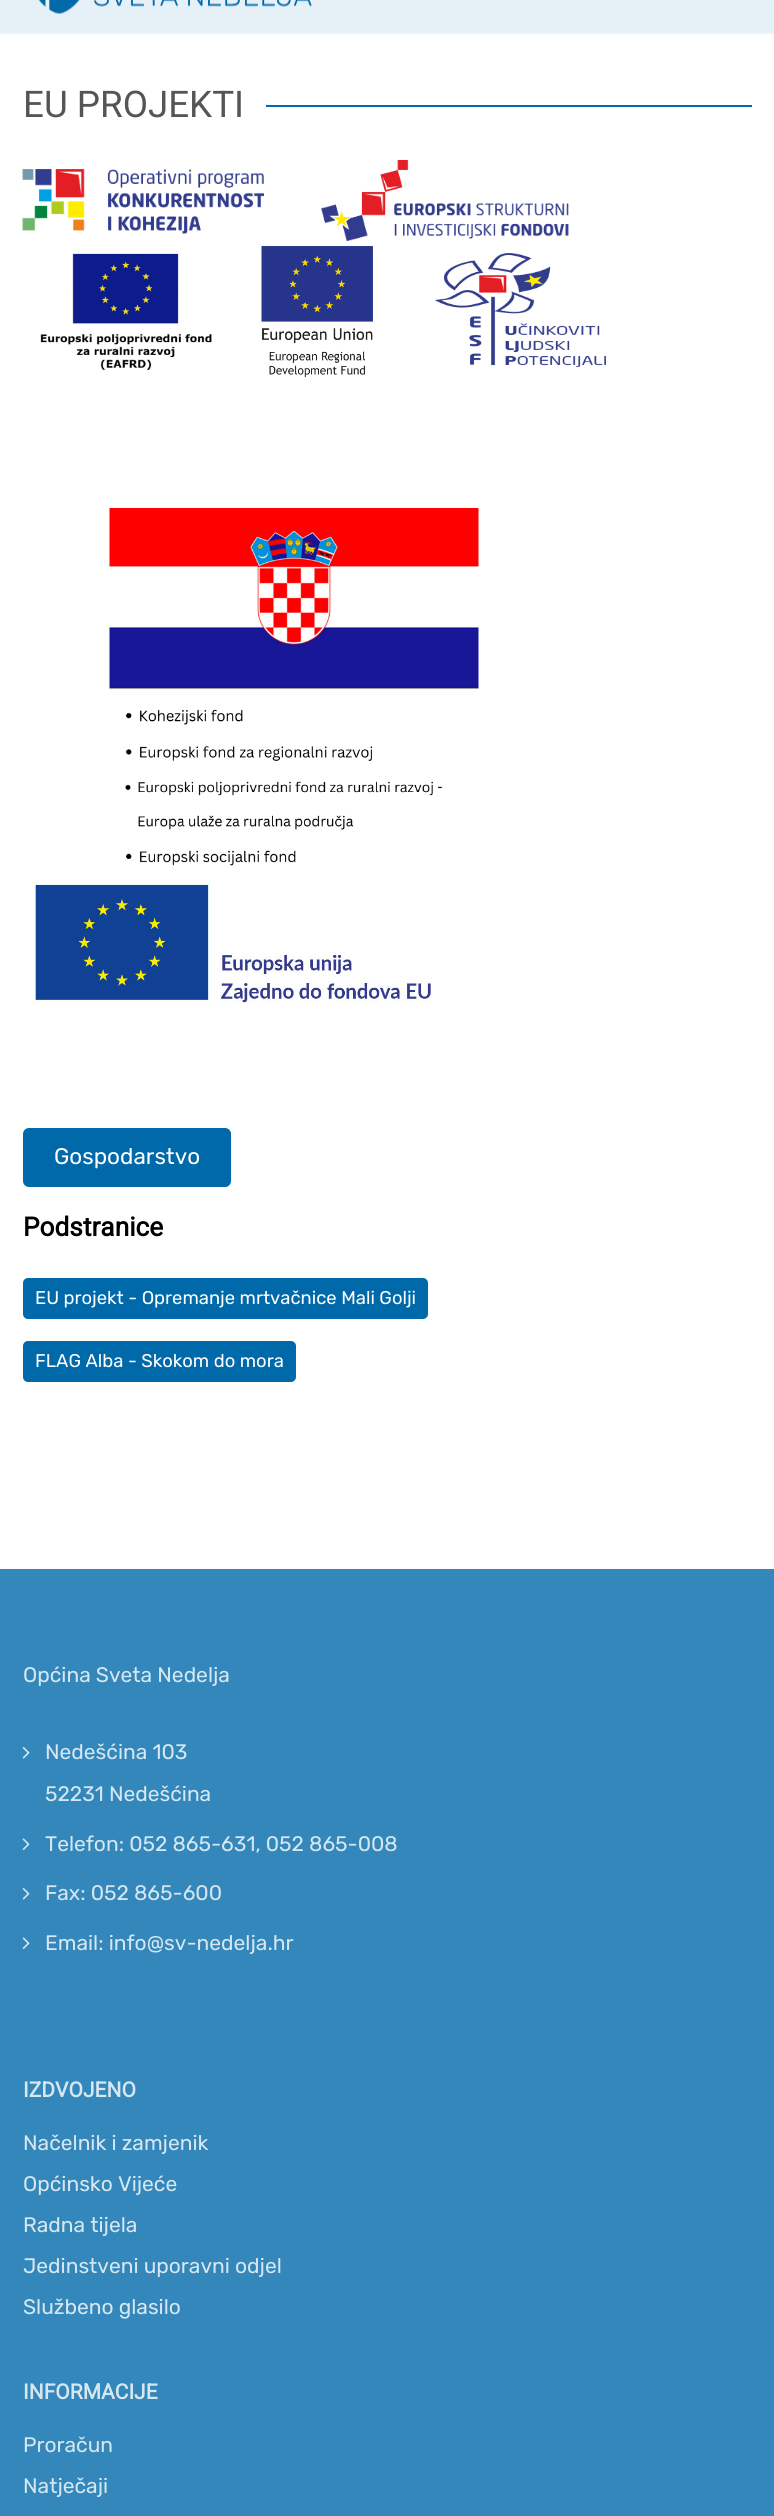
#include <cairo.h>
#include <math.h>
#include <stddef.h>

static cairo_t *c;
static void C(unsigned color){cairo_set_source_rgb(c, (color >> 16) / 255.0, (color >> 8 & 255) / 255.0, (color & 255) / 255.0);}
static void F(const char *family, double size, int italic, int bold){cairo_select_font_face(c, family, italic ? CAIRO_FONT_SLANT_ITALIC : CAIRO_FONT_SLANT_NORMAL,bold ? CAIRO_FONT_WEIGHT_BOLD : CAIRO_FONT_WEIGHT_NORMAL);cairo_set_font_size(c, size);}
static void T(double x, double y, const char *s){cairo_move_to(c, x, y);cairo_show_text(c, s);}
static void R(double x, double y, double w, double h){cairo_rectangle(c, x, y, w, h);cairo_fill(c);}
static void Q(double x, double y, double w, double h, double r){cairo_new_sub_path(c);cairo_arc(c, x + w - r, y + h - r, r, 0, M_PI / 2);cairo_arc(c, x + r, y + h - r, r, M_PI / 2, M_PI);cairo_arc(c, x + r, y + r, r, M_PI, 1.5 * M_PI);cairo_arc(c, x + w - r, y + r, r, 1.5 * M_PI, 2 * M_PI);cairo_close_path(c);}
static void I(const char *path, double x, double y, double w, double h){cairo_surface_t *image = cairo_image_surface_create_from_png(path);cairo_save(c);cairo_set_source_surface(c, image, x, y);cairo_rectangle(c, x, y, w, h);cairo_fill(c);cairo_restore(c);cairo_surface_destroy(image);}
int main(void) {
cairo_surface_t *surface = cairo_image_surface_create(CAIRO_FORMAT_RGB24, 774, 2516);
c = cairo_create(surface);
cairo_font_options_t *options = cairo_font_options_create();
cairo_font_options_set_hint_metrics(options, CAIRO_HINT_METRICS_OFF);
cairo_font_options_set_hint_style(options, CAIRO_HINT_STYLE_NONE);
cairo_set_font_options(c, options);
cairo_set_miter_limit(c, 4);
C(0xffffff);
cairo_paint(c);
C(0xe6f0f7);
R(0,0,774,33);
C(0xf8f9fa);
R(0,33,774,2);
I("1.png",38,0,274,14);
F("Roboto",36.75,0,0);
C(0x555555);
T(23,117,"EU PROJEKTI");
C(0x0069aa);
R(266,105,486,2);
I("2.png",22,169,242,65);
I("3.png",321,160,248,81);
I("4.png",40,253,172,117);
I("5.png",261,245,112,133);
I("6.png",435,253,171,114);
I("7.png",109,508,370,358);
I("8.png",35,881,397,122);
Q(23,1128,208,59,6);
cairo_fill(c);
F("Rubik Light",22.5,0,0);
C(0xffffff);
T(54,1164,"Gospodarstvo");
F("Roboto",26.25,0,1);
C(0x000000);
T(23,1236,"Podstranice");
C(0x0069aa);
Q(23,1278,405,41,5);
cairo_fill(c);
F("Rubik Light",18.4,0,0);
C(0xffffff);
T(35,1304,"EU projekt - Opremanje mrtvačnice Mali Golji");
C(0x0069aa);
Q(23,1341,273,41,5);
cairo_fill(c);
C(0xffffff);
T(35,1367,"FLAG Alba - Skokom do mora");
C(0x3387bb);
R(0,1569,774,947);
F("Rubik Light",21,0,0);
C(0xd6e7f1);
T(23,1682,"Općina Sveta Nedelja");
I("9.png",22,1747,8,12);
T(45,1759,"Nedešćina 103");
T(45,1801,"52231 Nedešćina");
I("10.png",22,1838,8,12);
T(45,1851,"Telefon: 052 865-631, 052 865-008");
I("9.png",22,1888,8,12);
T(45,1900,"Fax: 052 865-600");
I("10.png",22,1937,8,12);
T(45,1950,"Email: info@sv-nedelja.hr");
F("Roboto",21,0,1);
T(23,2097,"IZDVOJENO");
F("Rubik Light",21,0,0);
T(23,2150,"Načelnik i zamjenik");
T(23,2191,"Općinsko Vijeće");
T(23,2232,"Radna tijela");
T(23,2273,"Jedinstveni uporavni odjel");
T(23,2314,"Službeno glasilo");
F("Roboto",21,0,1);
T(23,2399,"INFORMACIJE");
F("Rubik Light",21,0,0);
T(23,2452,"Proračun");
T(23,2493,"Natječaji");
cairo_surface_write_to_png(surface, "o.png");
cairo_font_options_destroy(options);
cairo_destroy(c);
cairo_surface_destroy(surface);
return 0;
}
